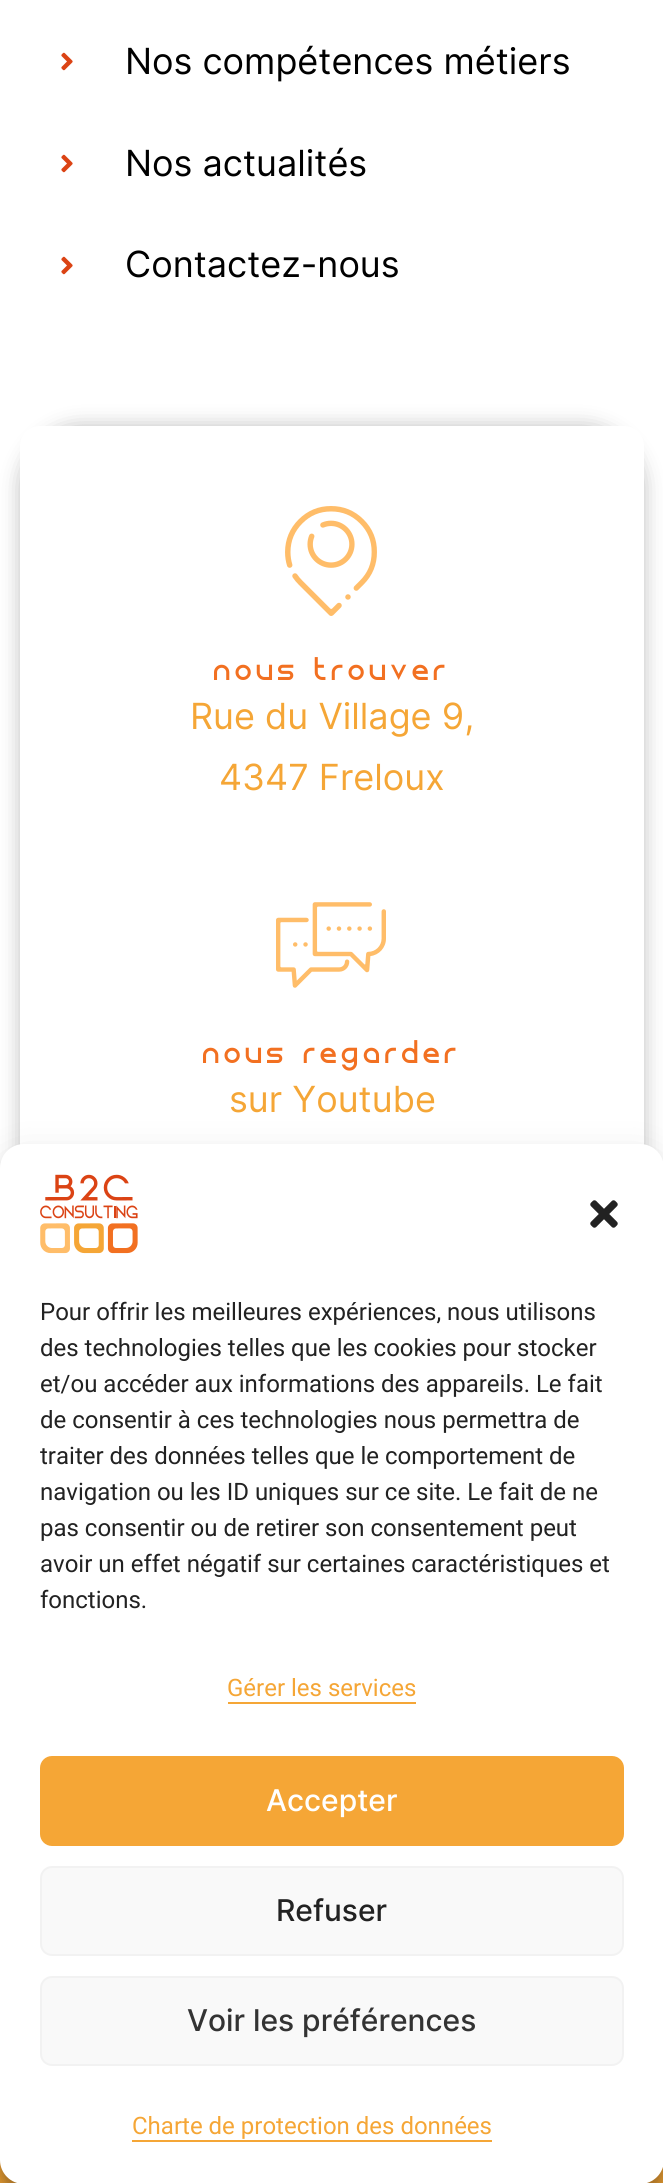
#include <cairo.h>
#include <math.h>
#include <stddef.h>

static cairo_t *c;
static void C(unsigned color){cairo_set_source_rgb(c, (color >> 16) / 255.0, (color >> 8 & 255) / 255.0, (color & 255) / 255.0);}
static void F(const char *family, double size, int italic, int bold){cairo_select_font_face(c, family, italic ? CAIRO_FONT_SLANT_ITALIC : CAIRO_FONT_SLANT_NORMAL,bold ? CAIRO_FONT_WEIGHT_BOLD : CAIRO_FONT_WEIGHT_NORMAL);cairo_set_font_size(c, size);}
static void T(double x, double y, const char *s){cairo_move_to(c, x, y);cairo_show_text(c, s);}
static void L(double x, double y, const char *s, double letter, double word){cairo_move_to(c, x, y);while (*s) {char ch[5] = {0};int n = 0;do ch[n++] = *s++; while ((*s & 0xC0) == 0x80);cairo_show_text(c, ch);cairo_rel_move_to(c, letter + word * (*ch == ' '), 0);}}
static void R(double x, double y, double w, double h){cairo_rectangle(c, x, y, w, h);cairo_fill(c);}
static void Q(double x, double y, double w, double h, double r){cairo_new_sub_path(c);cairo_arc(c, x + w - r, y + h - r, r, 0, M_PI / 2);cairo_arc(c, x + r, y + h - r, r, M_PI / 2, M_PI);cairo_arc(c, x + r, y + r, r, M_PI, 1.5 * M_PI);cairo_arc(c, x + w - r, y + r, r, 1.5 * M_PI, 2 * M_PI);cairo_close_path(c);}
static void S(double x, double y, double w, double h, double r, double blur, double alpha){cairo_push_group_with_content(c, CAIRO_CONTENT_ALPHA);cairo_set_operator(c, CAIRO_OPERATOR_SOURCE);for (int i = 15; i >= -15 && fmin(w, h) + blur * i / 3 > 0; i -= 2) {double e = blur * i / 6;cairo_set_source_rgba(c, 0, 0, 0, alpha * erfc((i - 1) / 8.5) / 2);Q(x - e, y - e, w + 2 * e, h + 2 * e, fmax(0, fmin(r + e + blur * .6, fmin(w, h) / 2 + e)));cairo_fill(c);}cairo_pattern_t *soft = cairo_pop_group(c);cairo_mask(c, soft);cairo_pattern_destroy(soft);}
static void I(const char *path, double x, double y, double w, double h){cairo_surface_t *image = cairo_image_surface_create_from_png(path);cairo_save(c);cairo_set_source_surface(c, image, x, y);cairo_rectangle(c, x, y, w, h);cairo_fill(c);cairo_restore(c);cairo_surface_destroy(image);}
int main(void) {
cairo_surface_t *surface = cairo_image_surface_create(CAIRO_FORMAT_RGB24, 663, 2183);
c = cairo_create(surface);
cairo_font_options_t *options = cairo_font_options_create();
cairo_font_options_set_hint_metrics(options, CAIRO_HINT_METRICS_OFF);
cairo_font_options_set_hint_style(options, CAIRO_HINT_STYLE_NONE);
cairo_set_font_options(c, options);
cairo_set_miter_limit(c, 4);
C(0xffffff);
cairo_paint(c);
I("1.png",61,52,12,19);
F("Inter",36,0,0);
C(0x000000);
T(125,74,"Nos compétences métiers");
I("1.png",61,154,12,19);
T(125,176,"Nos actualités");
I("1.png",61,256,12,19);
T(125,277,"Contactez-nous");
C(0x000000);
S(20,426,624,1490,60,10,.25);
C(0xffffff);
cairo_new_path(c);
cairo_move_to(c,40,426);
cairo_line_to(c,624,426);
cairo_curve_to(c,635,426,644,435,644,446);
cairo_line_to(c,644,1856);
cairo_curve_to(c,644,1889,617,1916,584,1916);
cairo_line_to(c,40,1916);
cairo_curve_to(c,29,1916,20,1907,20,1896);
cairo_line_to(c,20,446);
cairo_curve_to(c,20,435,29,426,40,426);
cairo_close_path(c);
cairo_fill(c);
I("2.png",285,506,92,110);
F("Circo",24,0,0);
C(0xf27021);
L(214,680,"nous trouver",3.6,0);
F("Inter",36,0,0);
C(0xf5a636);
T(190,729,"Rue du Village 9,");
T(219,790,"4347 Freloux");
I("3.png",276,902,110,86);
F("Circo",24,0,0);
C(0xf27021);
L(203,1063,"nous regarder",3.6,0);
F("Inter",36,0,0);
C(0xf5a636);
T(229,1112,"sur Youtube");
R(0,2160,663,23);
C(0x000000);
S(0,1156,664,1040,24,6,.23);
S(0,1164,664,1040,24,20,.19);
C(0xffffff);
Q(0,1144,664,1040,24);
cairo_fill(c);
I("4.png",40,1174,98,80);
I("5.png",590,1200,28,28);
F("Roboto",24,0,0);
C(0x222222);
T(40,1320,"Pour offrir les meilleures expériences, nous utilisons");
T(40,1356,"des technologies telles que les cookies pour stocker");
T(40,1392,"et/ou accéder aux informations des appareils. Le fait");
T(40,1428,"de consentir à ces technologies nous permettra de");
T(40,1464,"traiter des données telles que le comportement de");
T(40,1500,"navigation ou les ID uniques sur ce site. Le fait de ne");
T(40,1536,"pas consentir ou de retirer son consentement peut");
T(40,1572,"avoir un effet négatif sur certaines caractéristiques et");
T(40,1608,"fonctions.");
C(0xf5a636);
T(227,1696,"Gérer les services");
R(228,1702,188,2);
Q(41,1757,582,88,11);
cairo_fill_preserve(c);
cairo_stroke(c);
F("Inter Medium",30,0,0);
C(0xffffff);
T(266,1811,"Accepter");
C(0xf9f9f9);
Q(41,1867,582,88,11);
cairo_fill_preserve(c);
C(0xf2f2f2);
cairo_stroke(c);
C(0x222222);
T(276,1921,"Refuser");
C(0xf9f9f9);
Q(41,1977,582,88,11);
cairo_fill_preserve(c);
C(0xf2f2f2);
cairo_stroke(c);
C(0x333333);
T(187,2031,"Voir les préférences");
F("Roboto",24,0,0);
C(0xf5a636);
T(132,2134,"Charte de protection des données");
R(132,2140,360,2);
cairo_surface_write_to_png(surface, "o.png");
cairo_font_options_destroy(options);
cairo_destroy(c);
cairo_surface_destroy(surface);
return 0;
}
